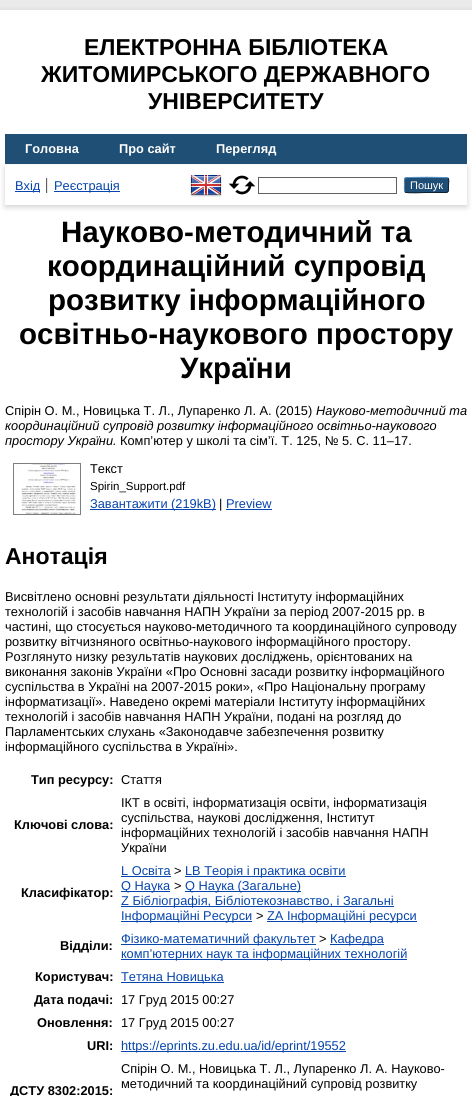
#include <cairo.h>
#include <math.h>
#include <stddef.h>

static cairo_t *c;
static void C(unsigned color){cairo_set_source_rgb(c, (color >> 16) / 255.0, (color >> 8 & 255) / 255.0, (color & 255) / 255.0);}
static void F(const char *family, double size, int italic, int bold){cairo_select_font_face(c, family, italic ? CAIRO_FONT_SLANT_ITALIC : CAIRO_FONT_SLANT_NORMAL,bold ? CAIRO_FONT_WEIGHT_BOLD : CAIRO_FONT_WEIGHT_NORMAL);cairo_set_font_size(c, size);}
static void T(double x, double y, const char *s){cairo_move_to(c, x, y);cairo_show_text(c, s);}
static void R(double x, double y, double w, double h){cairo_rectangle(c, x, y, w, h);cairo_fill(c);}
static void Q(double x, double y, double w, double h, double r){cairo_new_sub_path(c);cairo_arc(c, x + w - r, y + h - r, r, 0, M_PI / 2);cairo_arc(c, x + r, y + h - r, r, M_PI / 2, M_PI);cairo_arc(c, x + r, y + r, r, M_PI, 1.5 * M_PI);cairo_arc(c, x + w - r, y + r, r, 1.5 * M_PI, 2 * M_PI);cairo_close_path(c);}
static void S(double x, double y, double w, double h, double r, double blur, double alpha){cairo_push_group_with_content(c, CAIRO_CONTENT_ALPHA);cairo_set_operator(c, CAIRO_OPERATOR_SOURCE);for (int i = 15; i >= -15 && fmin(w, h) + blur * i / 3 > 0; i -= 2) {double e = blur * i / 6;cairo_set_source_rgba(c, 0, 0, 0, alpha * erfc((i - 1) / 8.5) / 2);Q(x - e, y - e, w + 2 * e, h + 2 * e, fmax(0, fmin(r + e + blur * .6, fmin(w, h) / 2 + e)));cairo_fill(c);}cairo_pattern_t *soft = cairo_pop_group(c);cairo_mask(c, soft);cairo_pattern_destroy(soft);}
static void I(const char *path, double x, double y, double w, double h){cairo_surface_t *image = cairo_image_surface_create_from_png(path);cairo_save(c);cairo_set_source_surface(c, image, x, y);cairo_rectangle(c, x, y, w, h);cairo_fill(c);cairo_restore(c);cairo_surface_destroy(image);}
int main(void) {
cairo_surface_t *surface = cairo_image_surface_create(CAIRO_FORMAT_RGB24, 472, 1096);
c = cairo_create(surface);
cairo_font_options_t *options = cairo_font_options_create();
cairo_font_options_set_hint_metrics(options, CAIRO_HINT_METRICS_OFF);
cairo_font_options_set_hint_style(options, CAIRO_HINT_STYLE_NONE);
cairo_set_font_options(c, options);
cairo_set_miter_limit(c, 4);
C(0xeaeaea);
cairo_paint(c);
C(0x646464);
S(0,12,472,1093,0,3,.3);
C(0xffffff);
R(0,10,472,1086);
F("Liberation Sans",23,0,1);
C(0x000000);
T(84,55,"ЕЛЕКТРОННА БІБЛІОТЕКА");
T(41,82,"ЖИТОМИРСЬКОГО ДЕРЖАВНОГО");
T(148,109,"УНІВЕРСИТЕТУ");
C(0x204f76);
R(5,134,462,30);
F("Liberation Sans",12.8,0,1);
C(0xffffff);
T(25,153,"Головна");
T(119,153,"Про сайт");
T(216,153,"Перегляд");
C(0x646464);
S(5,167,462,40,0,3,.3);
C(0xffffff);
R(5,165,462,40);
C(0x606060);
R(46,178,1,15);
C(0x0645ad);
R(15,191,25,1);
F("Liberation Sans",12.8,0,0);
T(15,190,"Вхід");
C(0xe8e8e8);
R(47,178,1,15);
C(0x0645ad);
R(54,191,66,1);
T(54,190,"Реєстрація");
I("1.png",190,175,32,22);
I("2.png",228,175,28,20);
cairo_rectangle(c,258.5,177.5,138,16);
C(0x606060);
cairo_set_line_width(c,1);
cairo_stroke(c);
C(0x1f4f76);
Q(404,177,45,16,3);
cairo_fill(c);
cairo_new_path(c);
cairo_move_to(c,405,178);
cairo_curve_to(c,406.5,177,446.5,177,448,178);
C(0x5b97c7);
cairo_stroke(c);
cairo_new_path(c);
cairo_move_to(c,448,178);
cairo_curve_to(c,449.5,180,448.5,183,448.5,185);
cairo_curve_to(c,448.5,193.5,449,192.5,439.5,192.5);
cairo_line_to(c,426.5,192.5);
cairo_curve_to(c,423.5,192.5,407,193.5,405,192);
C(0x0d2131);
cairo_stroke(c);
cairo_new_path(c);
cairo_move_to(c,405,192);
cairo_curve_to(c,404,190.5,404.5,186.5,404.5,185);
cairo_curve_to(c,404.5,183.5,404,179.5,405,178);
C(0x5287b3);
cairo_stroke(c);
F("Liberation Sans",11,0,0);
C(0xffffff);
T(410,189,"Пошук");
F("Liberation Sans",29.5,0,1);
C(0x000000);
T(61,242,"Науково-методичний та");
T(47,276,"координаційний супровід");
T(48,310,"розвитку інформаційного");
T(19,344,"освітньо-наукового простору");
T(180,378,"України");
F("Liberation Sans",12.8,0,0);
T(5,415,"Спірін О. М., Новицька Т. Л., Лупаренко Л. А. (2015)");
F("Liberation Sans",12.8,1,0);
T(316,415,"Науково-методичний та");
T(5,430,"координаційний супровід розвитку інформаційного освітньо-наукового");
T(5,445,"простору України.");
F("Liberation Sans",12.8,0,0);
T(120,445,"Комп’ютер у школі та сім’ї. Т. 125, № 5. С. 11–17.");
I("3.png",13,463,68,52);
T(90,473,"Текст");
F("Liberation Sans",11.5,0,0);
T(90,490,"Spirin_Support.pdf");
C(0x0645ad);
R(90,509,126,1);
F("Liberation Sans",12.8,0,0);
T(90,508,"Завантажити (219kB)");
C(0x000000);
T(219,508,"|");
C(0x0645ad);
T(226,508,"Preview");
R(226,509,46,1);
F("Liberation Sans",23,0,1);
C(0x000000);
T(5,564,"Анотація");
F("Liberation Sans",12.8,0,0);
T(5,601,"Висвітлено основні результати діяльності Інституту інформаційних");
T(5,616,"технологій і засобів навчання НАПН України за період 2007-2015 рр. в");
T(5,631,"частині, що стосується науково-методичного та координаційного супроводу");
T(5,646,"розвитку вітчизняного освітньо-наукового інформаційного простору.");
T(5,661,"Розглянуто низку результатів наукових досліджень, орієнтованих на");
T(5,676,"виконання законів України «Про Основні засади розвитку інформаційного");
T(5,691,"суспільства в Україні на 2007-2015 роки», «Про Національну програму");
T(5,706,"інформатизації». Наведено окремі матеріали Інституту інформаційних");
T(5,721,"технологій і засобів навчання НАПН України, подані на розгляд до");
T(5,736,"Парламентських слухань «Законодавче забезпечення розвитку");
T(5,751,"інформаційного суспільства в Україні».");
F("Liberation Sans",12.8,0,1);
T(31,784,"Тип ресурсу:");
F("Liberation Sans",12.8,0,0);
T(121,784,"Стаття");
F("Liberation Sans",12.8,0,1);
T(14,829,"Ключові слова:");
F("Liberation Sans",12.8,0,0);
T(121,807,"ІКТ в освіті, інформатизація освіти, інформатизація");
T(121,822,"суспільства, наукові дослідження, Інститут");
T(121,837,"інформаційних технологій і засобів навчання НАПН");
T(121,852,"України");
F("Liberation Sans",12.8,0,1);
T(21,897,"Класифікатор:");
F("Liberation Sans",12.8,0,0);
C(0x0645ad);
T(121,875,"L Освіта");
R(121,876,50,1);
C(0x000000);
T(174,875,">");
C(0x0645ad);
R(185,876,161,1);
T(185,875,"LB Теорія і практика освіти");
R(121,891,49,1);
T(121,890,"Q Наука");
C(0x000000);
T(174,890,">");
C(0x0645ad);
R(185,891,116,1);
T(185,890,"Q Наука (Загальне)");
R(121,906,273,1);
T(121,905,"Z Бібліографія, Бібліотекознавство, і Загальні");
R(121,921,131,1);
T(121,920,"Інформаційні Ресурси");
C(0x000000);
T(256,920,">");
C(0x0645ad);
R(267,921,150,1);
T(267,920,"ZA Інформаційні ресурси");
F("Liberation Sans",12.8,0,1);
C(0x000000);
T(60,950,"Відділи:");
C(0x0645ad);
R(121,944,195,1);
F("Liberation Sans",12.8,0,0);
T(121,943,"Фізико-математичний факультет");
C(0x000000);
T(319,943,">");
C(0x0645ad);
R(330,944,54,1);
T(330,943,"Кафедра");
R(121,959,286,1);
T(121,958,"комп’ютерних наук та інформаційних технологій");
F("Liberation Sans",12.8,0,1);
C(0x000000);
T(35,981,"Користувач:");
C(0x0645ad);
R(121,982,103,1);
F("Liberation Sans",12.8,0,0);
T(121,981,"Тетяна Новицька");
F("Liberation Sans",12.8,0,1);
C(0x000000);
T(34,1004,"Дата подачі:");
F("Liberation Sans",12.8,0,0);
T(121,1004,"17 Груд 2015 00:27");
F("Liberation Sans",12.8,0,1);
T(37,1027,"Оновлення:");
F("Liberation Sans",12.8,0,0);
T(121,1027,"17 Груд 2015 00:27");
F("Liberation Sans",12.8,0,1);
T(87,1050,"URI:");
C(0x0645ad);
R(121,1051,225,1);
F("Liberation Sans",12.8,0,0);
T(121,1050,"https://eprints.zu.edu.ua/id/eprint/19552");
F("Liberation Sans",12.8,0,1);
C(0x000000);
T(10,1095,"ДСТУ 8302:2015:");
F("Liberation Sans",12.8,0,0);
T(121,1073,"Спірін О. М., Новицька Т. Л., Лупаренко Л. А. Науково-");
T(121,1088,"методичний та координаційний супровід розвитку");
cairo_surface_write_to_png(surface, "o.png");
cairo_font_options_destroy(options);
cairo_destroy(c);
cairo_surface_destroy(surface);
return 0;
}
